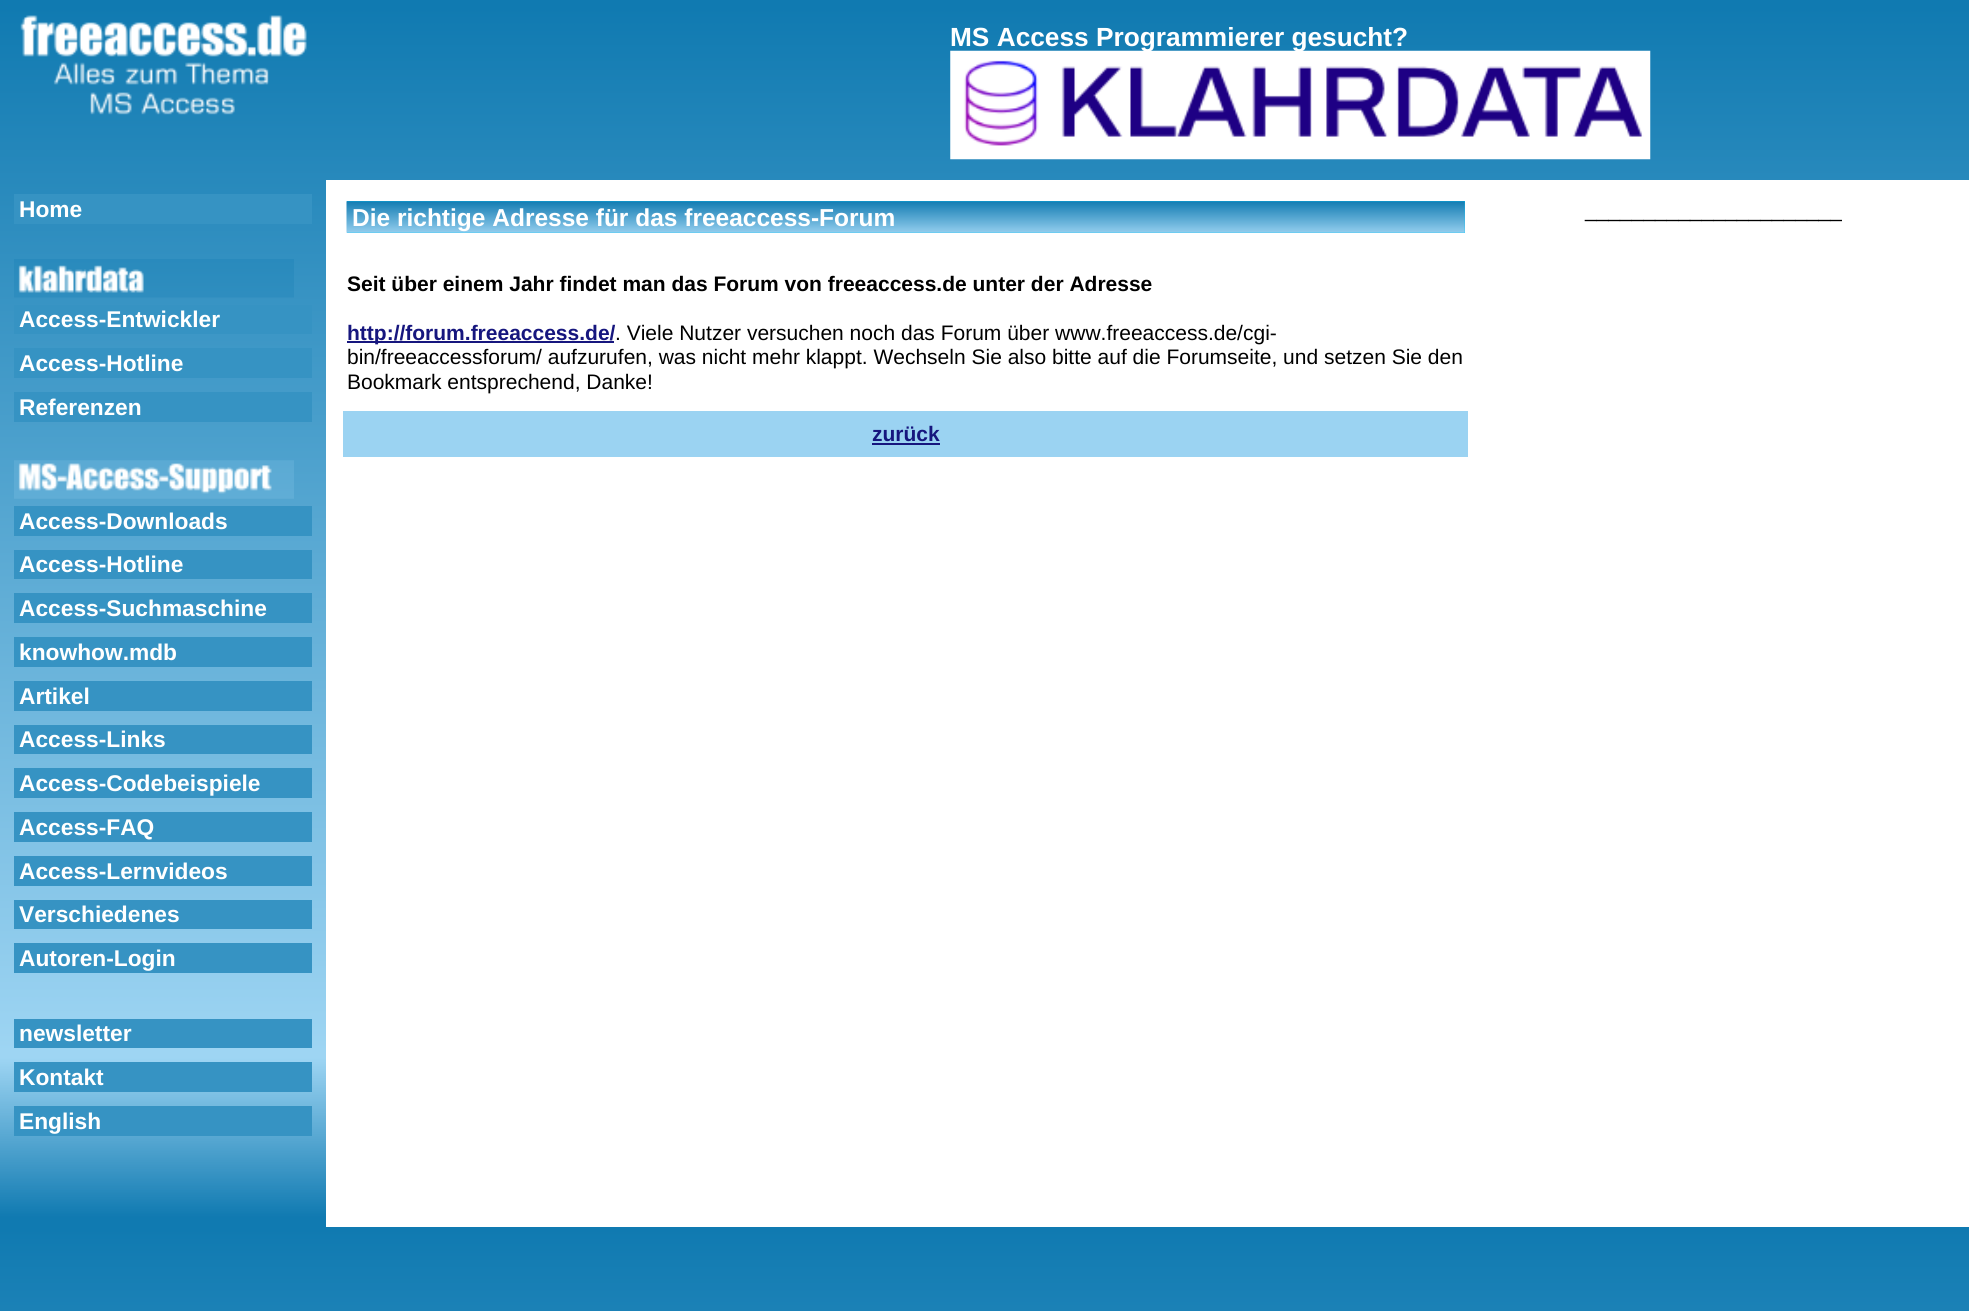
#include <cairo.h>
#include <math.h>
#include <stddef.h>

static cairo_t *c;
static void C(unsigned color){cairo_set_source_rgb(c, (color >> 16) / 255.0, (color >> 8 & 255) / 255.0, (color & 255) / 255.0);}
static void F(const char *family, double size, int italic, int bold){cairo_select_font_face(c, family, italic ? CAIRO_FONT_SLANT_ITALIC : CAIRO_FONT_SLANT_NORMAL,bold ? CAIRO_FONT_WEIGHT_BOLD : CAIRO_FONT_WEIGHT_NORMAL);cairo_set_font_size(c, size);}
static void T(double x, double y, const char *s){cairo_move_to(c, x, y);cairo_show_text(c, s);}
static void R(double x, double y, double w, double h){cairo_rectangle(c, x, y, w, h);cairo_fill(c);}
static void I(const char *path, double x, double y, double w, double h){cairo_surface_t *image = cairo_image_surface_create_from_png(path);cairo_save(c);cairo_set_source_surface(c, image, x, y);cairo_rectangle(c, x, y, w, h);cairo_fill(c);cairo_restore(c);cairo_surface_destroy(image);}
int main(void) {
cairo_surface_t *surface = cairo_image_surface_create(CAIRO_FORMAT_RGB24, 1969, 1311);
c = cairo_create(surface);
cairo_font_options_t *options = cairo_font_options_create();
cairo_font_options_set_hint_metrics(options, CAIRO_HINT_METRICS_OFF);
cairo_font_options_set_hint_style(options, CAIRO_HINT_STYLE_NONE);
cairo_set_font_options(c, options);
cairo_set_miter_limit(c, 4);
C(0xffffff);
cairo_paint(c);
I("1.png",0,0,1969,1311);
I("2.png",20,15,287,100);
F("Liberation Sans",26.25,0,1);
C(0xffffff);
T(950,46,"MS Access Programmierer gesucht?");
I("3.png",950,50,701,110);
C(0x3693c3);
R(14,194,298,30);
F("Liberation Sans",22.75,0,1);
C(0xffffff);
T(19,217,"Home");
I("4.png",14,259,280,39);
C(0x3693c3);
R(14,305,298,29);
C(0xffffff);
T(19,327,"Access-Entwickler");
C(0x3693c3);
R(14,348,298,30);
C(0xffffff);
T(19,371,"Access-Hotline");
C(0x3693c3);
R(14,392,298,30);
C(0xffffff);
T(19,415,"Referenzen");
I("5.png",14,460,280,39);
C(0x3693c3);
R(14,506,298,30);
C(0xffffff);
T(19,529,"Access-Downloads");
C(0x3693c3);
R(14,550,298,29);
C(0xffffff);
T(19,572,"Access-Hotline");
C(0x3693c3);
R(14,593,298,30);
C(0xffffff);
T(19,616,"Access-Suchmaschine");
C(0x3693c3);
R(14,637,298,30);
C(0xffffff);
T(19,660,"knowhow.mdb");
C(0x3693c3);
R(14,681,298,30);
C(0xffffff);
T(19,704,"Artikel");
C(0x3693c3);
R(14,725,298,29);
C(0xffffff);
T(19,747,"Access-Links");
C(0x3693c3);
R(14,768,298,30);
C(0xffffff);
T(19,791,"Access-Codebeispiele");
C(0x3693c3);
R(14,812,298,30);
C(0xffffff);
T(19,835,"Access-FAQ");
C(0x3693c3);
R(14,856,298,30);
C(0xffffff);
T(19,879,"Access-Lernvideos");
C(0x3693c3);
R(14,900,298,29);
C(0xffffff);
T(19,922,"Verschiedenes");
C(0x3693c3);
R(14,943,298,30);
C(0xffffff);
T(19,966,"Autoren-Login");
C(0x3693c3);
R(14,1019,298,29);
C(0xffffff);
T(19,1041,"newsletter");
C(0x3693c3);
R(14,1062,298,30);
C(0xffffff);
T(19,1085,"Kontakt");
C(0x3693c3);
R(14,1106,298,30);
C(0xffffff);
T(19,1129,"English");
R(326,180,1643,1047);
C(0x00ccff);
R(347,201,1118,32);
I("6.png",346,201,1119,32);
F("Liberation Sans",24.5,0,1);
C(0xffffff);
T(352,226,"Die richtige Adresse für das freeaccess-Forum");
F("Liberation Sans",21,0,1);
C(0x000000);
T(347,291,"Seit über einem Jahr findet man das Forum von freeaccess.de unter der Adresse");
C(0x16167e);
R(347,341,267,2);
T(347,340,"http://forum.freeaccess.de/");
F("Liberation Sans",21,0,0);
C(0x000000);
T(615,340,". Viele Nutzer versuchen noch das Forum über www.freeaccess.de/cgi-");
T(347,364,"bin/freeaccessforum/ aufzurufen, was nicht mehr klappt. Wechseln Sie also bitte auf die Forumseite, und setzen Sie den");
T(347,389,"Bookmark entsprechend, Danke!");
C(0x9bd3f2);
R(343,411,1125,46);
F("Liberation Sans",21,0,1);
C(0x16167e);
T(872,441,"zurück");
R(872,443,68,2);
F("Liberation Sans",21,0,0);
C(0x000000);
T(1585,217,"______________________");
cairo_surface_write_to_png(surface, "o.png");
cairo_font_options_destroy(options);
cairo_destroy(c);
cairo_surface_destroy(surface);
return 0;
}
